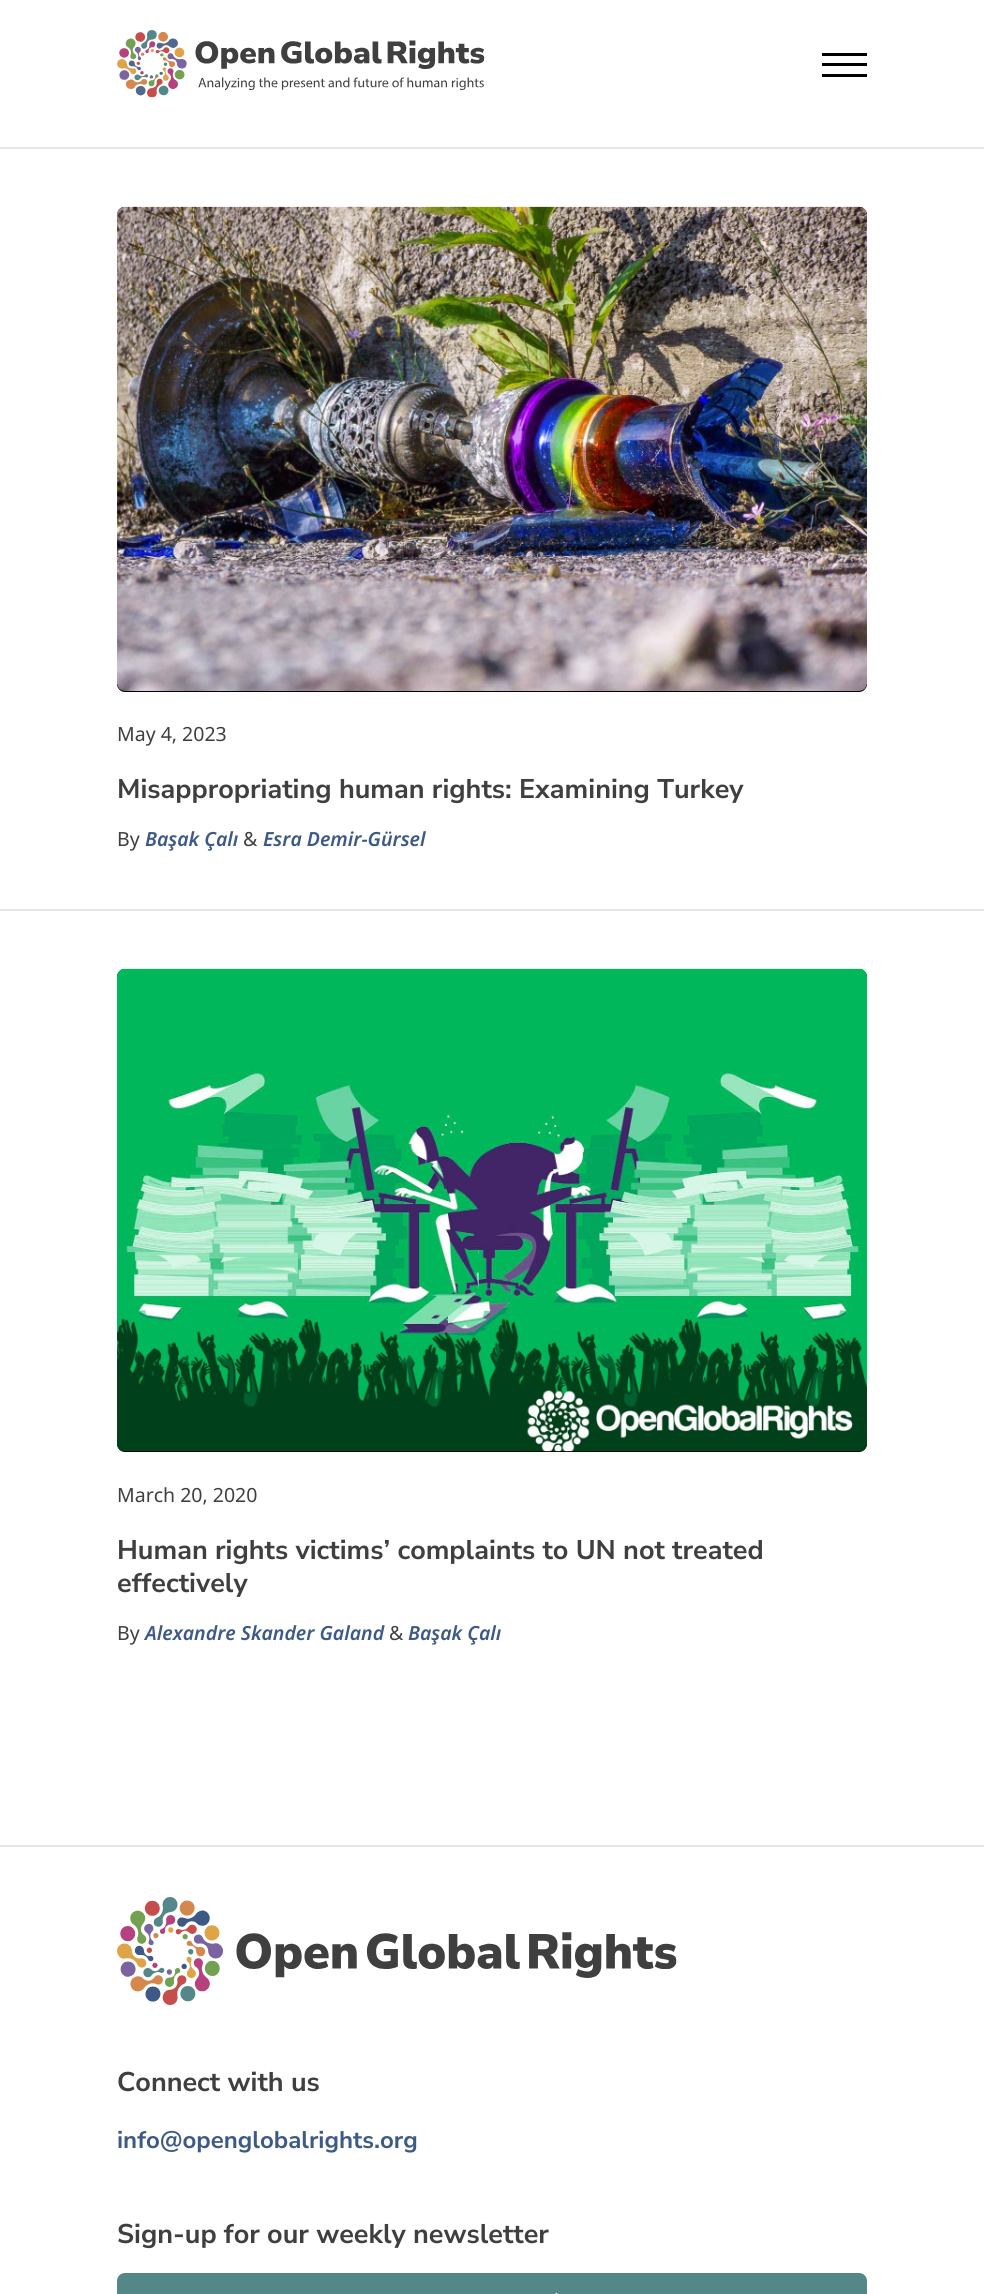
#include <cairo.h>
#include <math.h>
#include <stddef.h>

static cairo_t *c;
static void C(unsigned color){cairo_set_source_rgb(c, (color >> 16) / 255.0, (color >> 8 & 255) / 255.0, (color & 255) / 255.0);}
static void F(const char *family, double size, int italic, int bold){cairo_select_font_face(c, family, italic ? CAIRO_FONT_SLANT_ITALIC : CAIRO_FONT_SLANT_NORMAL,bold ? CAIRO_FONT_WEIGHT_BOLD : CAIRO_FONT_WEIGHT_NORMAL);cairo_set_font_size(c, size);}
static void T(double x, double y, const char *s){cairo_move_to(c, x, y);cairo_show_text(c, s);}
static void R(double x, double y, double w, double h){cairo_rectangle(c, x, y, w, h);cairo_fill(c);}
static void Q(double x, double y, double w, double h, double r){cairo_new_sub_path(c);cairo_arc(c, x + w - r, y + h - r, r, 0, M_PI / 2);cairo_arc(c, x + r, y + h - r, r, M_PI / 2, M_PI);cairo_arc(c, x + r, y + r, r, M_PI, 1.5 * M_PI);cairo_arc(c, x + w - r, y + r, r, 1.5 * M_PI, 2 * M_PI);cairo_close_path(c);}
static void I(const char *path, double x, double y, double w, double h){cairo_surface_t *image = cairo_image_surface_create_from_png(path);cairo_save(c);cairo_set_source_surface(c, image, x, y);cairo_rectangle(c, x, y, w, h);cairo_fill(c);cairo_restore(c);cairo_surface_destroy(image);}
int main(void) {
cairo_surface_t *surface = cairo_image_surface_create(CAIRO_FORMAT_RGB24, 984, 2294);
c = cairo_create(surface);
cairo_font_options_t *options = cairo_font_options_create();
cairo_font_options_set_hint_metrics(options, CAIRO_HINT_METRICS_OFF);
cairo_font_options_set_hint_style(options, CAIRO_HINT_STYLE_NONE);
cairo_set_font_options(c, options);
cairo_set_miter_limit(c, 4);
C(0xffffff);
cairo_paint(c);
I("1.png",117,30,368,68);
C(0x000000);
R(822,53,45,3);
R(822,63,45,3);
R(822,74,45,3);
C(0xe6e6e6);
R(0,147,984,2);
C(0x000000);
Q(117,207,750,485,8);
cairo_fill(c);
I("2.png",117,206,750,485);
F("Noto Sans",19.5,0,0);
C(0x3f3f3f);
T(117,741,"May 4, 2023");
F("Nunito Sans",27,0,1);
T(117,798,"Misappropriating human rights: Examining Turkey");
F("Noto Sans",19.5,0,0);
T(117,846,"By");
F("Noto Sans SemiBold",19.5,1,0);
C(0x3c5a85);
T(145,846,"Başak Çalı");
F("Noto Sans",19.5,0,0);
C(0x3f3f3f);
T(243,846,"&");
F("Noto Sans SemiBold",19.5,1,0);
C(0x3c5a85);
T(263,846,"Esra Demir-Gürsel");
C(0xe6e6e6);
R(0,909,984,2);
C(0x000000);
Q(117,969,750,483,8);
cairo_fill(c);
I("3.png",117,968,750,484);
F("Noto Sans",19.5,0,0);
C(0x3f3f3f);
T(117,1502,"March 20, 2020");
F("Nunito Sans",27,0,1);
T(117,1559,"Human rights victims’ complaints to UN not treated");
T(117,1592,"effectively");
F("Noto Sans",19.5,0,0);
T(117,1640,"By");
F("Noto Sans SemiBold",19.5,1,0);
C(0x3c5a85);
T(145,1640,"Alexandre Skander Galand");
F("Noto Sans",19.5,0,0);
C(0x3f3f3f);
T(389,1640,"&");
F("Noto Sans SemiBold",19.5,1,0);
C(0x3c5a85);
T(408,1640,"Başak Çalı");
C(0xe6e6e6);
R(0,1845,984,2);
I("4.png",117,1897,560,108);
F("Nunito Sans",27,0,1);
C(0x3f3f3f);
T(117,2091,"Connect with us");
F("Nunito Sans",24,0,1);
C(0x3c5a85);
T(117,2148,"info@openglobalrights.org");
F("Nunito Sans",27,0,1);
C(0x3f3f3f);
T(117,2243,"Sign-up for our weekly newsletter");
C(0x548787);
Q(117,2273,750,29,8);
cairo_fill(c);
I("5.png",555,2292,3,2);
cairo_surface_write_to_png(surface, "o.png");
cairo_font_options_destroy(options);
cairo_destroy(c);
cairo_surface_destroy(surface);
return 0;
}
